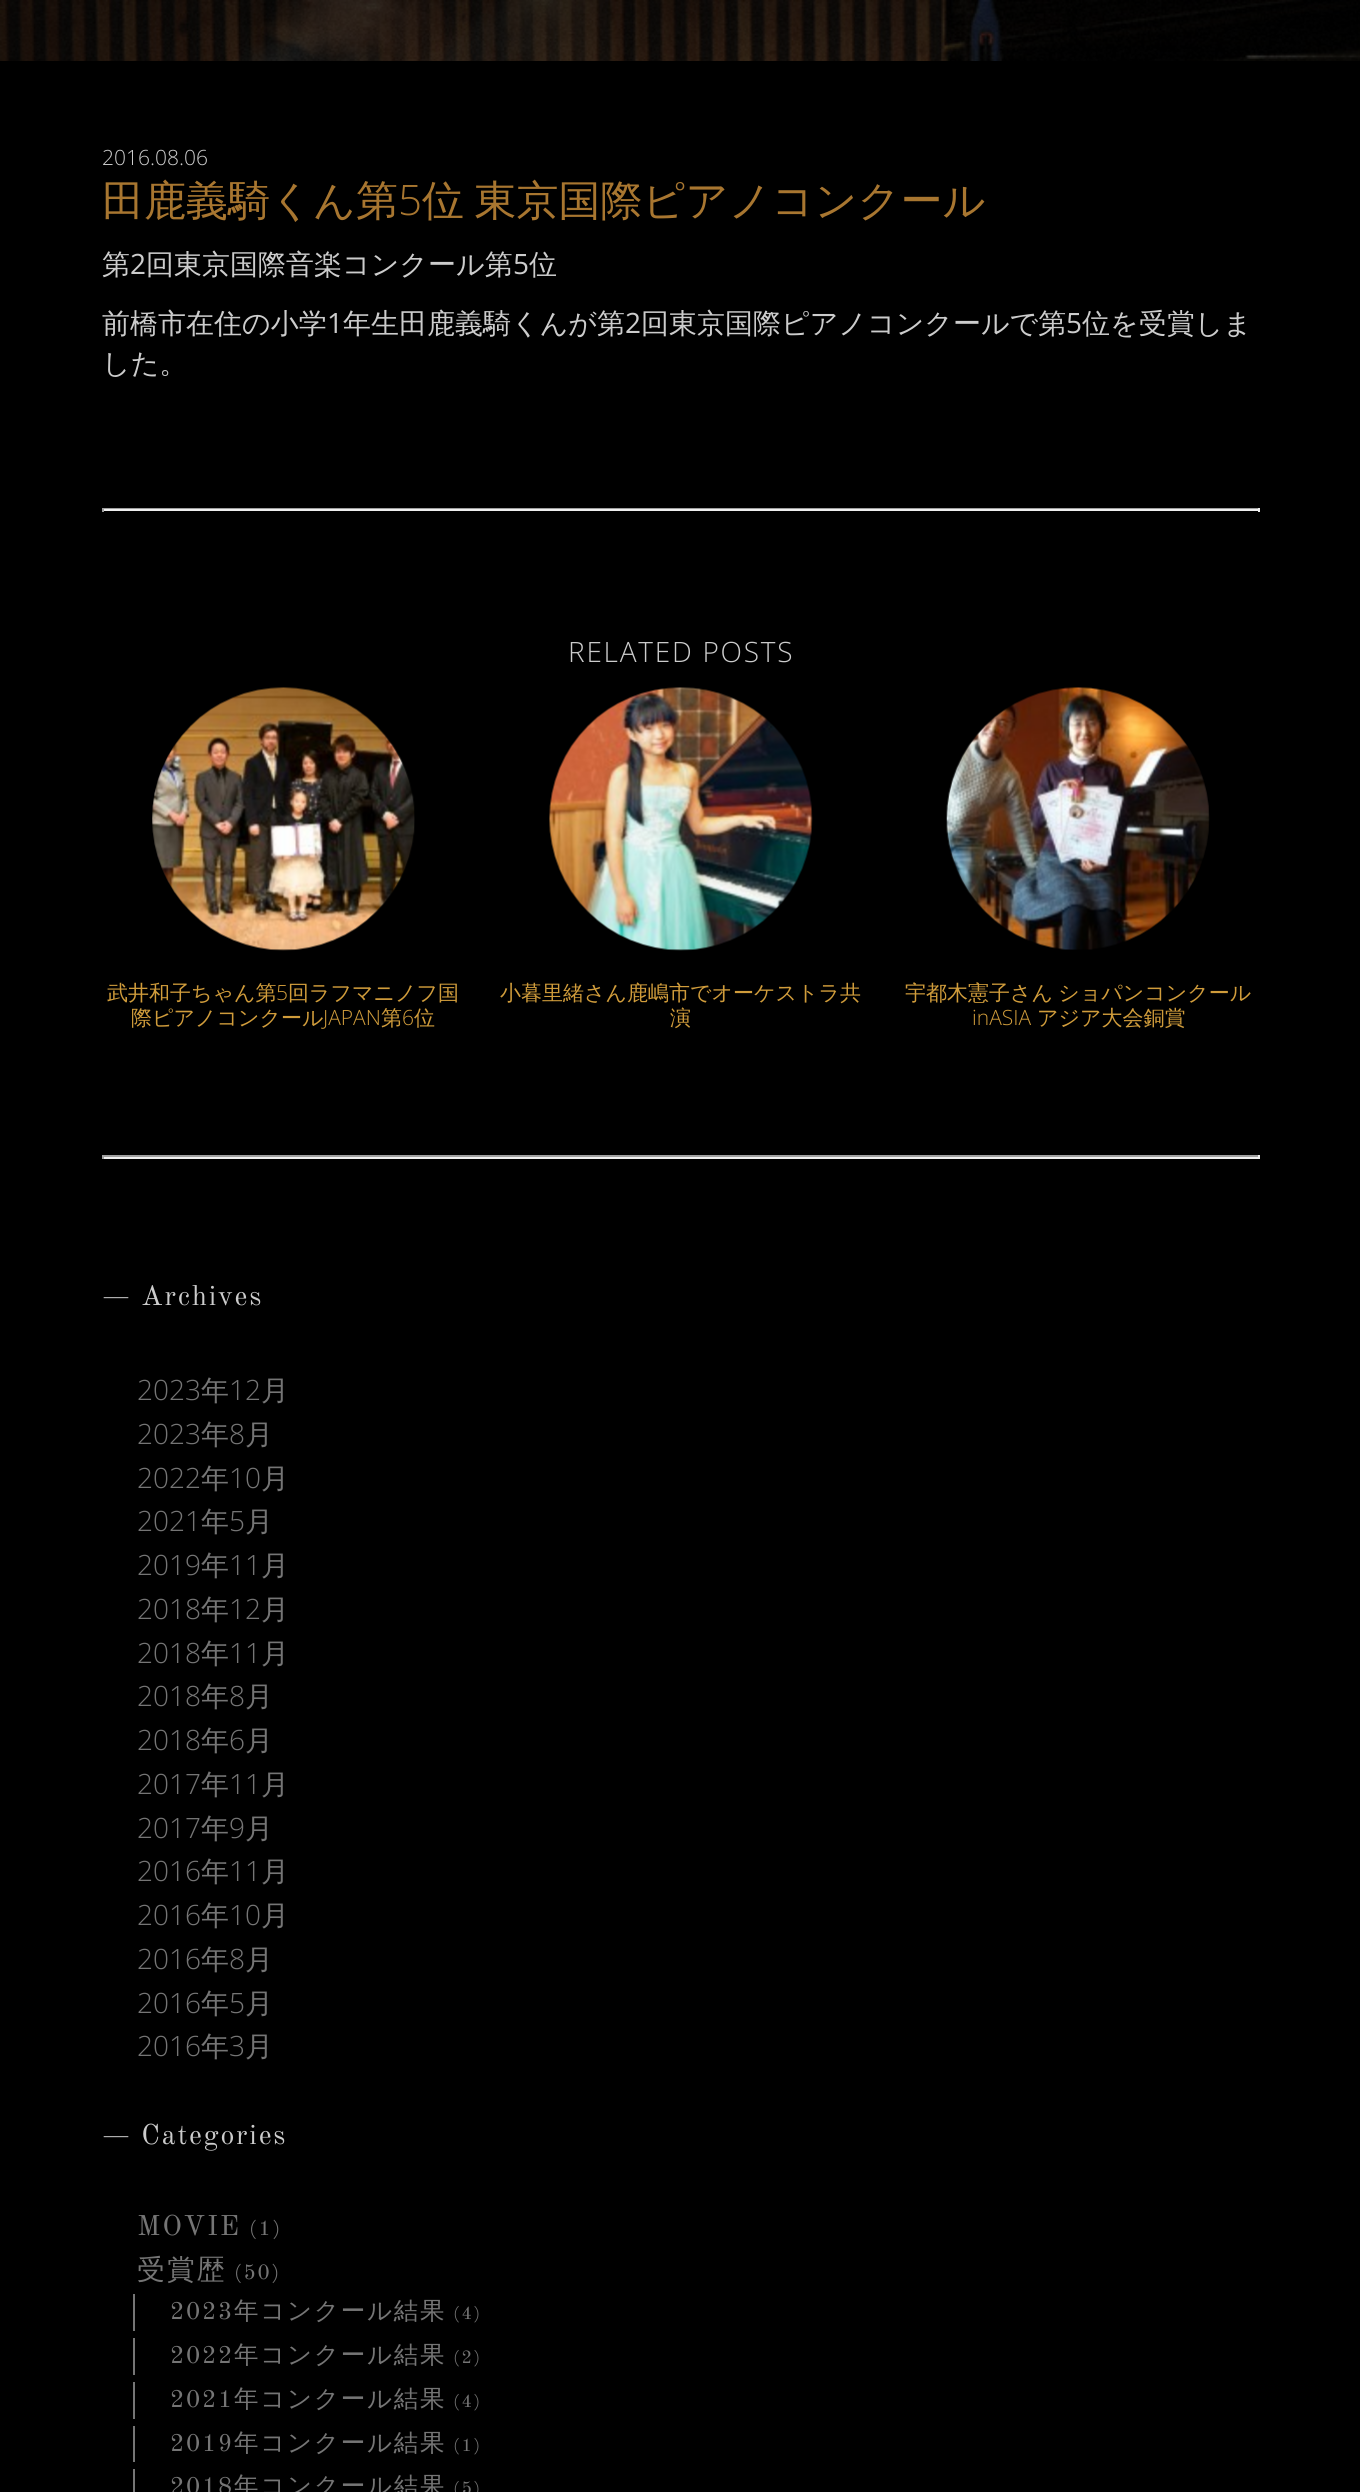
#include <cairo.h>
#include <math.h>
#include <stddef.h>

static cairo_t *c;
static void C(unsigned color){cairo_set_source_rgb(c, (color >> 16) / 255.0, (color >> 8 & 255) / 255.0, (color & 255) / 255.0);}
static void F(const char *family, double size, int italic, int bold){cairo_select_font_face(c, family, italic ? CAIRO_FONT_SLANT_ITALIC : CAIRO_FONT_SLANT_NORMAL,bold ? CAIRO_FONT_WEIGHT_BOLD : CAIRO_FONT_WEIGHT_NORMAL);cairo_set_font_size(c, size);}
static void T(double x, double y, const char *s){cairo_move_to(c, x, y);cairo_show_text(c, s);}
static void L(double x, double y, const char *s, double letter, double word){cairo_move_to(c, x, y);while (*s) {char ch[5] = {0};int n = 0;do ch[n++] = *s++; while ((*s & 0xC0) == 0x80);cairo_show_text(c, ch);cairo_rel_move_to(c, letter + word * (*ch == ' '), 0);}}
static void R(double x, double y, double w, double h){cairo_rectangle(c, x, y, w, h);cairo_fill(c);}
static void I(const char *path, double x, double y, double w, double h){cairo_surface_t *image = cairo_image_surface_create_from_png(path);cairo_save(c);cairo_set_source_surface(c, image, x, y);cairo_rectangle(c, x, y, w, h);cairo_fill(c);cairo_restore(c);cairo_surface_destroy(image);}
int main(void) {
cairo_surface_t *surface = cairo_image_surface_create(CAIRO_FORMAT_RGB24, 1360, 2492);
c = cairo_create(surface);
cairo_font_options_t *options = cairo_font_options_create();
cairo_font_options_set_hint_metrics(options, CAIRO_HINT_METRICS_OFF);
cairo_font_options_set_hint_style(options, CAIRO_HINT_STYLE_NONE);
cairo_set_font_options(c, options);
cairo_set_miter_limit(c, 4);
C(0x000000);
cairo_paint(c);
I("1.png",0,0,1360,61);
F("Open Sans Light",21,0,0);
C(0xcccccc);
T(102,165,"2016.08.06");
F("WenQuanYi Zen Hei Medium",42,0,0);
C(0xa87630);
T(102,215,"田鹿義騎くん第");
F("Open Sans Light",42,0,0);
T(398,215,"5");
F("WenQuanYi Zen Hei Medium",42,0,0);
L(422,215,"位 東京国際ピアノコンクール",0,-2);
F("WenQuanYi Zen Hei Medium",28,0,0);
C(0xcccccc);
T(102,274,"第");
F("Open Sans",28,0,0);
T(130,274,"2");
F("WenQuanYi Zen Hei Medium",28,0,0);
T(146,274,"回東京国際音楽コンクール第");
F("Open Sans",28,0,0);
T(513,274,"5");
F("WenQuanYi Zen Hei Medium",28,0,0);
T(529,274,"位");
T(102,333,"前橋市在住の小学");
F("Open Sans",28,0,0);
T(327,333,"1");
F("WenQuanYi Zen Hei Medium",28,0,0);
T(343,333,"年生田鹿義騎くんが第");
F("Open Sans",28,0,0);
T(625,333,"2");
F("WenQuanYi Zen Hei Medium",28,0,0);
T(641,333,"回東京国際ピアノコンクールで第");
F("Open Sans",28,0,0);
T(1066,333,"5");
F("WenQuanYi Zen Hei Medium",28,0,0);
T(1082,333,"位を受賞しま");
T(102,373,"した。");
C(0x9f9f9f);
R(102,508,1158,1);
C(0xeeeeee);
R(1258,508,2,4);
R(102,509,1158,2);
C(0x9f9f9f);
R(102,508,2,4);
F("Open Sans Light",28,0,0);
C(0xcccccc);
L(568,662,"RELATED POSTS",1.75,0);
I("2.png",152,687,263,264);
F("WenQuanYi Zen Hei Medium",21,0,0);
C(0xd09c3b);
T(107,1000,"武井和子ちゃん第");
F("Open Sans Light",21,0,0);
T(276,1000,"5");
F("WenQuanYi Zen Hei Medium",21,0,0);
T(288,1000,"回ラフマニノフ国");
T(131,1025,"際ピアノコンクール");
F("Open Sans Light",21,0,0);
T(323,1025,"JAPAN");
F("WenQuanYi Zen Hei Medium",21,0,0);
T(381,1025,"第");
F("Open Sans Light",21,0,0);
T(402,1025,"6");
F("WenQuanYi Zen Hei Medium",21,0,0);
T(414,1025,"位");
I("3.png",549,687,264,264);
T(500,1000,"小暮里緒さん鹿嶋市でオーケストラ共");
T(670,1025,"演");
I("4.png",946,687,264,263);
L(905,1000,"宇都木憲子さん ショパンコンクール",0,-1);
F("Open Sans Light",21,0,0);
T(972,1025,"inASIA");
F("WenQuanYi Zen Hei Medium",21,0,0);
T(1037,1025,"アジア大会銅賞");
C(0x9f9f9f);
R(102,1155,1158,2);
C(0xeeeeee);
R(1258,1155,2,4);
R(102,1157,1158,2);
C(0x9f9f9f);
R(102,1155,2,4);
F("Old Standard TT",28,0,0);
C(0xcccccc);
L(102,1305,"— Archives",1.75,0);
F("Open Sans Light",28,0,0);
C(0x757575);
T(137,1400,"2023");
F("WenQuanYi Zen Hei Medium",28,0,0);
T(201,1400,"年");
F("Open Sans Light",28,0,0);
T(229,1400,"12");
F("WenQuanYi Zen Hei Medium",28,0,0);
T(261,1400,"月");
F("Open Sans Light",28,0,0);
T(137,1444,"2023");
F("WenQuanYi Zen Hei Medium",28,0,0);
T(201,1444,"年");
F("Open Sans Light",28,0,0);
T(229,1444,"8");
F("WenQuanYi Zen Hei Medium",28,0,0);
T(245,1444,"月");
F("Open Sans Light",28,0,0);
T(137,1488,"2022");
F("WenQuanYi Zen Hei Medium",28,0,0);
T(201,1488,"年");
F("Open Sans Light",28,0,0);
T(229,1488,"10");
F("WenQuanYi Zen Hei Medium",28,0,0);
T(261,1488,"月");
F("Open Sans Light",28,0,0);
T(137,1531,"2021");
F("WenQuanYi Zen Hei Medium",28,0,0);
T(201,1531,"年");
F("Open Sans Light",28,0,0);
T(229,1531,"5");
F("WenQuanYi Zen Hei Medium",28,0,0);
T(245,1531,"月");
F("Open Sans Light",28,0,0);
T(137,1575,"2019");
F("WenQuanYi Zen Hei Medium",28,0,0);
T(201,1575,"年");
F("Open Sans Light",28,0,0);
T(229,1575,"11");
F("WenQuanYi Zen Hei Medium",28,0,0);
T(261,1575,"月");
F("Open Sans Light",28,0,0);
T(137,1619,"2018");
F("WenQuanYi Zen Hei Medium",28,0,0);
T(201,1619,"年");
F("Open Sans Light",28,0,0);
T(229,1619,"12");
F("WenQuanYi Zen Hei Medium",28,0,0);
T(261,1619,"月");
F("Open Sans Light",28,0,0);
T(137,1663,"2018");
F("WenQuanYi Zen Hei Medium",28,0,0);
T(201,1663,"年");
F("Open Sans Light",28,0,0);
T(229,1663,"11");
F("WenQuanYi Zen Hei Medium",28,0,0);
T(261,1663,"月");
F("Open Sans Light",28,0,0);
T(137,1706,"2018");
F("WenQuanYi Zen Hei Medium",28,0,0);
T(201,1706,"年");
F("Open Sans Light",28,0,0);
T(229,1706,"8");
F("WenQuanYi Zen Hei Medium",28,0,0);
T(245,1706,"月");
F("Open Sans Light",28,0,0);
T(137,1750,"2018");
F("WenQuanYi Zen Hei Medium",28,0,0);
T(201,1750,"年");
F("Open Sans Light",28,0,0);
T(229,1750,"6");
F("WenQuanYi Zen Hei Medium",28,0,0);
T(245,1750,"月");
F("Open Sans Light",28,0,0);
T(137,1794,"2017");
F("WenQuanYi Zen Hei Medium",28,0,0);
T(201,1794,"年");
F("Open Sans Light",28,0,0);
T(229,1794,"11");
F("WenQuanYi Zen Hei Medium",28,0,0);
T(261,1794,"月");
F("Open Sans Light",28,0,0);
T(137,1838,"2017");
F("WenQuanYi Zen Hei Medium",28,0,0);
T(201,1838,"年");
F("Open Sans Light",28,0,0);
T(229,1838,"9");
F("WenQuanYi Zen Hei Medium",28,0,0);
T(245,1838,"月");
F("Open Sans Light",28,0,0);
T(137,1881,"2016");
F("WenQuanYi Zen Hei Medium",28,0,0);
T(201,1881,"年");
F("Open Sans Light",28,0,0);
T(229,1881,"11");
F("WenQuanYi Zen Hei Medium",28,0,0);
T(261,1881,"月");
F("Open Sans Light",28,0,0);
T(137,1925,"2016");
F("WenQuanYi Zen Hei Medium",28,0,0);
T(201,1925,"年");
F("Open Sans Light",28,0,0);
T(229,1925,"10");
F("WenQuanYi Zen Hei Medium",28,0,0);
T(261,1925,"月");
F("Open Sans Light",28,0,0);
T(137,1969,"2016");
F("WenQuanYi Zen Hei Medium",28,0,0);
T(201,1969,"年");
F("Open Sans Light",28,0,0);
T(229,1969,"8");
F("WenQuanYi Zen Hei Medium",28,0,0);
T(245,1969,"月");
F("Open Sans Light",28,0,0);
T(137,2013,"2016");
F("WenQuanYi Zen Hei Medium",28,0,0);
T(201,2013,"年");
F("Open Sans Light",28,0,0);
T(229,2013,"5");
F("WenQuanYi Zen Hei Medium",28,0,0);
T(245,2013,"月");
F("Open Sans Light",28,0,0);
T(137,2056,"2016");
F("WenQuanYi Zen Hei Medium",28,0,0);
T(201,2056,"年");
F("Open Sans Light",28,0,0);
T(229,2056,"3");
F("WenQuanYi Zen Hei Medium",28,0,0);
T(245,2056,"月");
F("Old Standard TT",28,0,0);
C(0xcccccc);
L(102,2144,"— Categories",1.75,0);
C(0x757575);
L(137,2235,"MOVIE",1.75,0);
F("Old Standard TT",21,0,0);
L(249,2235,"(1)",1.75,0);
F("WenQuanYi Zen Hei Medium",28,0,0);
L(137,2279,"受賞歴",1.75,0);
F("Old Standard TT",21,0,0);
L(234,2279,"(50)",1.75,0);
R(133,2294,2,37);
F("Old Standard TT",24.5,0,0);
L(170,2319,"2023",1.75,0);
F("WenQuanYi Zen Hei Medium",24.5,0,0);
L(234,2319,"年コンクール結果",1.75,0);
F("Old Standard TT",18,0,0);
L(453,2319,"(4)",1.75,0);
R(133,2338,2,37);
F("Old Standard TT",24.5,0,0);
L(170,2363,"2022",1.75,0);
F("WenQuanYi Zen Hei Medium",24.5,0,0);
L(234,2363,"年コンクール結果",1.75,0);
F("Old Standard TT",18,0,0);
L(453,2363,"(2)",1.75,0);
R(133,2382,2,37);
F("Old Standard TT",24.5,0,0);
L(170,2407,"2021",1.75,0);
F("WenQuanYi Zen Hei Medium",24.5,0,0);
L(234,2407,"年コンクール結果",1.75,0);
F("Old Standard TT",18,0,0);
L(453,2407,"(4)",1.75,0);
R(133,2426,2,36);
F("Old Standard TT",24.5,0,0);
L(170,2451,"2019",1.75,0);
F("WenQuanYi Zen Hei Medium",24.5,0,0);
L(234,2451,"年コンクール結果",1.75,0);
F("Old Standard TT",18,0,0);
L(453,2451,"(1)",1.75,0);
R(133,2469,2,23);
F("Old Standard TT",24.5,0,0);
L(170,2494,"2018",1.75,0);
F("WenQuanYi Zen Hei Medium",24.5,0,0);
L(234,2494,"年コンクール結果",1.75,0);
F("Old Standard TT",18,0,0);
L(453,2494,"(5)",1.75,0);
cairo_surface_write_to_png(surface, "o.png");
cairo_font_options_destroy(options);
cairo_destroy(c);
cairo_surface_destroy(surface);
return 0;
}
